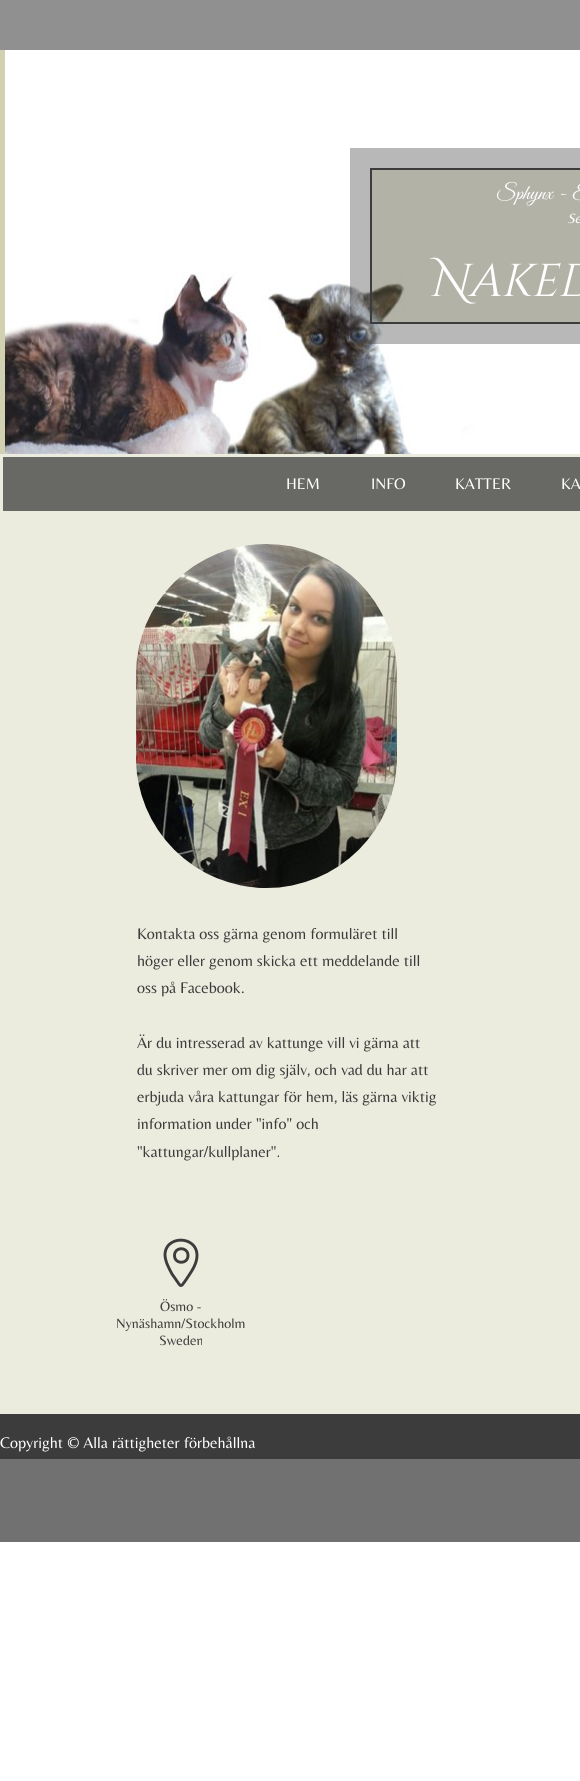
#include <cairo.h>
#include <math.h>
#include <stddef.h>

static cairo_t *c;
static void C(unsigned color){cairo_set_source_rgb(c, (color >> 16) / 255.0, (color >> 8 & 255) / 255.0, (color & 255) / 255.0);}
static void F(const char *family, double size, int italic, int bold){cairo_select_font_face(c, family, italic ? CAIRO_FONT_SLANT_ITALIC : CAIRO_FONT_SLANT_NORMAL,bold ? CAIRO_FONT_WEIGHT_BOLD : CAIRO_FONT_WEIGHT_NORMAL);cairo_set_font_size(c, size);}
static void T(double x, double y, const char *s){cairo_move_to(c, x, y);cairo_show_text(c, s);}
static void R(double x, double y, double w, double h){cairo_rectangle(c, x, y, w, h);cairo_fill(c);}
static void I(const char *path, double x, double y, double w, double h){cairo_surface_t *image = cairo_image_surface_create_from_png(path);cairo_save(c);cairo_set_source_surface(c, image, x, y);cairo_rectangle(c, x, y, w, h);cairo_fill(c);cairo_restore(c);cairo_surface_destroy(image);}
int main(void) {
cairo_surface_t *surface = cairo_image_surface_create(CAIRO_FORMAT_RGB24, 580, 1781);
c = cairo_create(surface);
cairo_font_options_t *options = cairo_font_options_create();
cairo_font_options_set_hint_metrics(options, CAIRO_HINT_METRICS_OFF);
cairo_font_options_set_hint_style(options, CAIRO_HINT_STYLE_NONE);
cairo_set_font_options(c, options);
cairo_set_miter_limit(c, 4);
C(0xffffff);
cairo_paint(c);
C(0x909090);
R(0,0,580,50);
C(0xd1d1b2);
R(0,50,5,404);
I("1.png",5,50,575,404);
cairo_set_source_rgba(c,0.235,0.235,0.235,0.36);
R(350,148,230,196);
cairo_set_source_rgba(c,0.58,0.58,0.298,0.16);
cairo_rectangle(c,371,169,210,154);
cairo_fill_preserve(c);
C(0x3c3c3c);
cairo_stroke(c);
F("Great Vibes",21,0,0);
C(0xffffff);
T(497,199,"Sphynx - E");
F("Belleza",14,1,0);
T(567,223,"Se");
F("Cinzel Decorative",46,1,0);
T(429,296,"Naked");
C(0xebebde);
R(0,454,580,960);
C(0x686865);
R(3,457,577,54);
F("Belleza",16,0,0);
C(0xffffff);
T(286,489,"HEM");
T(371,489,"INFO");
T(455,489,"KATTER");
T(561,489,"KA");
I("2.png",136,544,261,344);
C(0x3c3c3c);
T(137,939,"Kontakta oss gärna genom formuläret till");
T(137,966,"höger eller genom skicka ett meddelande till");
T(137,993,"oss på Facebook.");
T(137,1048,"Är du intresserad av kattunge vill vi gärna att");
T(137,1075,"du skriver mer om dig själv, och vad du har att");
T(137,1102,"erbjuda våra kattungar för hem, läs gärna viktig");
T(137,1129,"information under \"info\" och");
T(137,1157,"\"kattungar/kullplaner\".");
cairo_new_path(c);
cairo_move_to(c,188,1255.5);
cairo_curve_to(c,188,1264.5,174.5,1264.5,174.5,1255.5);
cairo_curve_to(c,174.5,1246.5,188,1246.5,188,1255.5);
cairo_close_path(c);
cairo_move_to(c,197,1255.5);
cairo_curve_to(c,197,1235,164.5,1235,165,1255.5);
cairo_curve_to(c,165.5,1262,169,1268.5,172,1274);
cairo_line_to(c,179,1284);
cairo_curve_to(c,181.5,1288,183,1283.5,185.5,1280.5);
cairo_line_to(c,188.5,1276);
cairo_curve_to(c,192.5,1270,197,1263,197,1255.5);
cairo_close_path(c);
cairo_set_line_width(c,2.9);
cairo_set_line_cap(c,CAIRO_LINE_CAP_ROUND);
cairo_set_line_join(c,CAIRO_LINE_JOIN_ROUND);
cairo_stroke(c);
F("Belleza",14,0,0);
T(160,1311,"Ösmo -");
T(116,1328,"Nynäshamn/Stockholm");
T(159,1345,"Sweden");
C(0x717171);
R(0,1459,580,83);
C(0x3c3c3c);
R(0,1414,580,45);
F("Belleza",16,0,0);
C(0xffffff);
T(0,1448,"Copyright © Alla rättigheter förbehållna");
cairo_surface_write_to_png(surface, "o.png");
cairo_font_options_destroy(options);
cairo_destroy(c);
cairo_surface_destroy(surface);
return 0;
}
